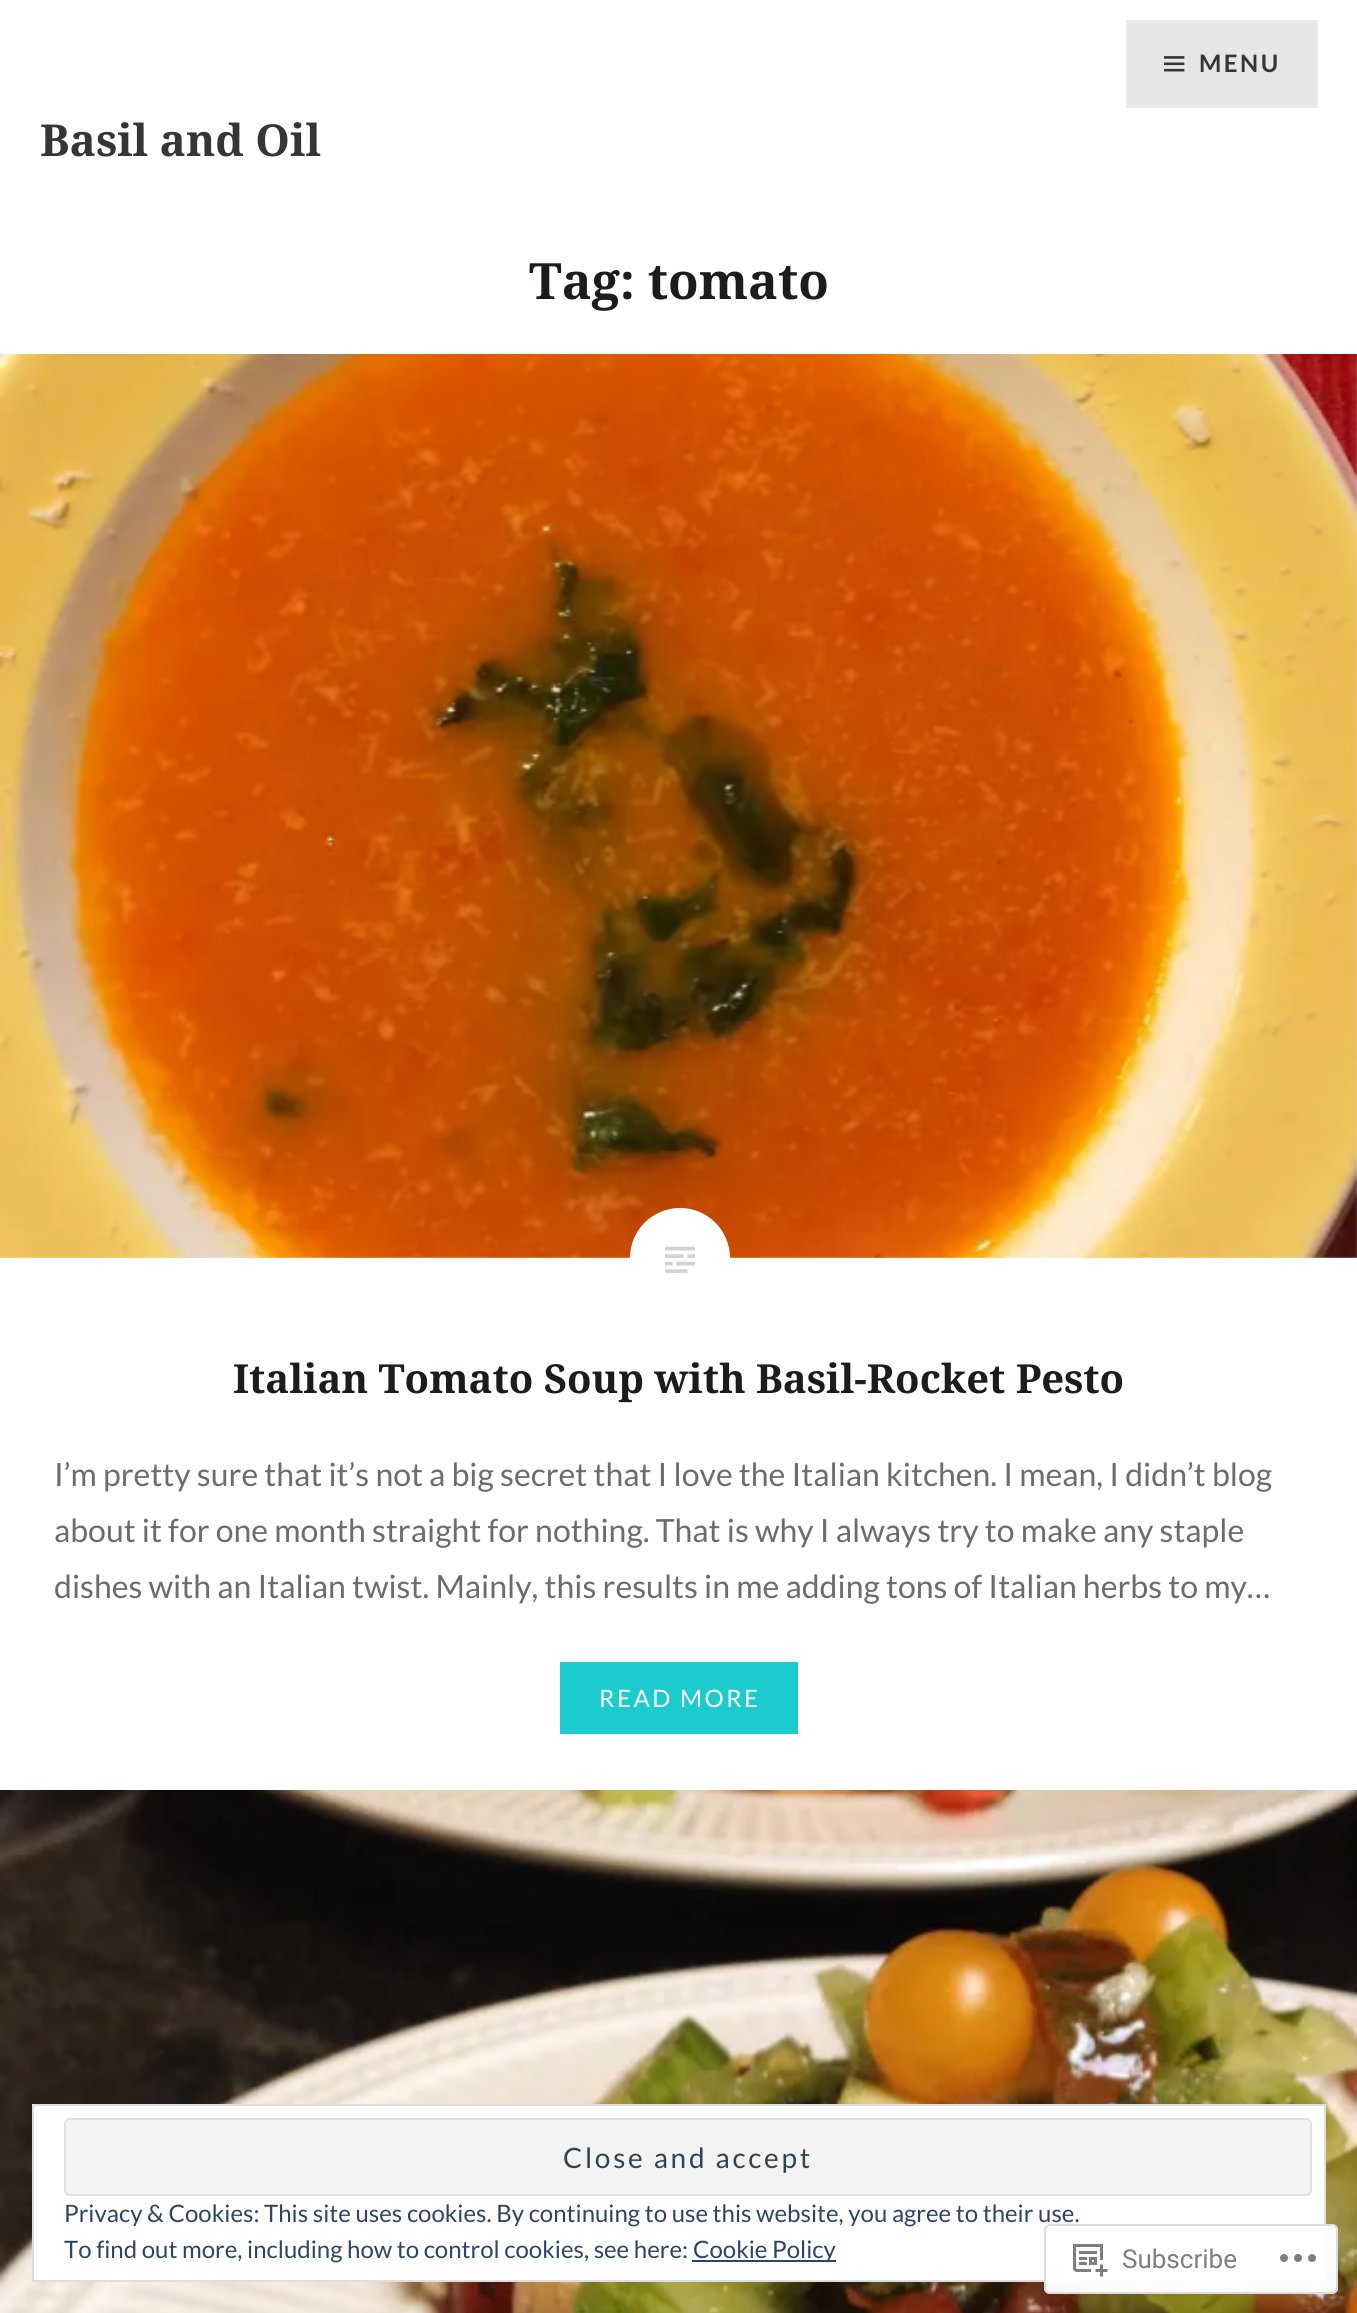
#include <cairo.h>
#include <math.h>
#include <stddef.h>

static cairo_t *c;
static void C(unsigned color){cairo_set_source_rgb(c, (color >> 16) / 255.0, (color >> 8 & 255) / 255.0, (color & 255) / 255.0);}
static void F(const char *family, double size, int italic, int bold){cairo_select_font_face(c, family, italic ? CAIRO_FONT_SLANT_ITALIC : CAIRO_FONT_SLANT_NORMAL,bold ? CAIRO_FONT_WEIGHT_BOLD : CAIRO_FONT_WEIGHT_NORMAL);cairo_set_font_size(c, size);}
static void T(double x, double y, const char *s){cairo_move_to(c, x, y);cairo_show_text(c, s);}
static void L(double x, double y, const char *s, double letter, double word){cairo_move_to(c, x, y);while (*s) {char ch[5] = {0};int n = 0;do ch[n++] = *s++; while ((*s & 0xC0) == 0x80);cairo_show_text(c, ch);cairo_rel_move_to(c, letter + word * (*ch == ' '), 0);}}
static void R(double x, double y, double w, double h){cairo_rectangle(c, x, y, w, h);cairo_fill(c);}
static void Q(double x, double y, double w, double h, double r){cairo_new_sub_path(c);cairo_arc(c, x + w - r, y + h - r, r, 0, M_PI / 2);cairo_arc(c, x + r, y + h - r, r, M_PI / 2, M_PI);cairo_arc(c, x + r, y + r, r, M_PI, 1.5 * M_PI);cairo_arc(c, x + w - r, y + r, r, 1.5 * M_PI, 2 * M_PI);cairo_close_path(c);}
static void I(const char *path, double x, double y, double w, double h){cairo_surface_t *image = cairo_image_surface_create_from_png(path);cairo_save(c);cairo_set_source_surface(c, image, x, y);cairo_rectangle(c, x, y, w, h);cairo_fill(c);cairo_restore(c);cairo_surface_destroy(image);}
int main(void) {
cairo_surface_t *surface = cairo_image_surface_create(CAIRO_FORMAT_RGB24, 1357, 2313);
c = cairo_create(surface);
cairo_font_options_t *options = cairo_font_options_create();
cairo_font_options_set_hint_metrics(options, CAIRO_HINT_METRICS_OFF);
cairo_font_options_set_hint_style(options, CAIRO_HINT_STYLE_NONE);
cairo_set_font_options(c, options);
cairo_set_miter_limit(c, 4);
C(0xffffff);
cairo_paint(c);
C(0xe6e6e6);
cairo_rectangle(c,1127,21,190,86);
cairo_fill_preserve(c);
C(0xebebeb);
cairo_stroke(c);
I("1.png",1164,56,21,16);
F("Lato",24,0,1);
C(0x353535);
L(1199,72,"MENU",2.5,0);
F("Noto Serif",44,0,1);
T(40,156,"Basil and Oil");
F("Noto Serif",50,0,1);
C(0x1a1c1e);
T(529,299,"Tag: tomato");
C(0xf2f2f2);
R(0,354,1357,904);
I("2.png",0,354,1357,904);
C(0xffffff);
cairo_arc(c,680,1258,50,0,2 * M_PI);
cairo_fill(c);
I("3.png",665,1246,30,27);
F("Noto Serif",40,0,1);
C(0x1a1c1e);
T(233,1393,"Italian Tomato Soup with Basil-Rocket Pesto");
F("Lato",32,0,0);
C(0x6a6c6e);
T(54,1486,"I’m pretty sure that it’s not a big secret that I love the Italian kitchen. I mean, I didn’t blog");
T(54,1542,"about it for one month straight for nothing. That is why I always try to make any staple");
T(54,1598,"dishes with an Italian twist. Mainly, this results in me adding tons of Italian herbs to my…");
C(0x1ccbce);
R(560,1662,238,72);
F("Lato",24,0,0);
C(0xffffff);
L(599,1707,"READ MORE",2.5,0);
I("4.png",0,1790,1357,523);
cairo_rectangle(c,33,2105,1292,176);
cairo_fill_preserve(c);
C(0xdedede);
cairo_stroke(c);
C(0xf3f3f3);
Q(65,2119,1246,76,5);
cairo_fill_preserve(c);
C(0xdedede);
cairo_stroke(c);
F("Lato",28,0,0);
C(0x2e4453);
L(563,2168,"Close and accept",2.75,0);
F("Lato",24,0,0);
C(0x2e4467);
T(64,2222,"Privacy & Cookies: This site uses cookies. By continuing to use this website, you agree to their use.");
T(64,2258,"To find out more, including how to control cookies, see here:");
R(692,2260,144,2);
T(693,2258,"Cookie Policy");
cairo_set_source_rgba(c,1,1,1,0.98);
Q(1044,2224,294,70,6);
cairo_fill(c);
Q(1045,2225,292,68,5);
cairo_set_source_rgba(c,0.863,0.863,0.871,0.98);
cairo_stroke(c);
I("5.png",1073,2244,35,33);
F("Roboto",26,0,0);
C(0x7b7f85);
T(1122,2268,"Subscribe");
I("6.png",1280,2254,36,8);
cairo_surface_write_to_png(surface, "o.png");
cairo_font_options_destroy(options);
cairo_destroy(c);
cairo_surface_destroy(surface);
return 0;
}
